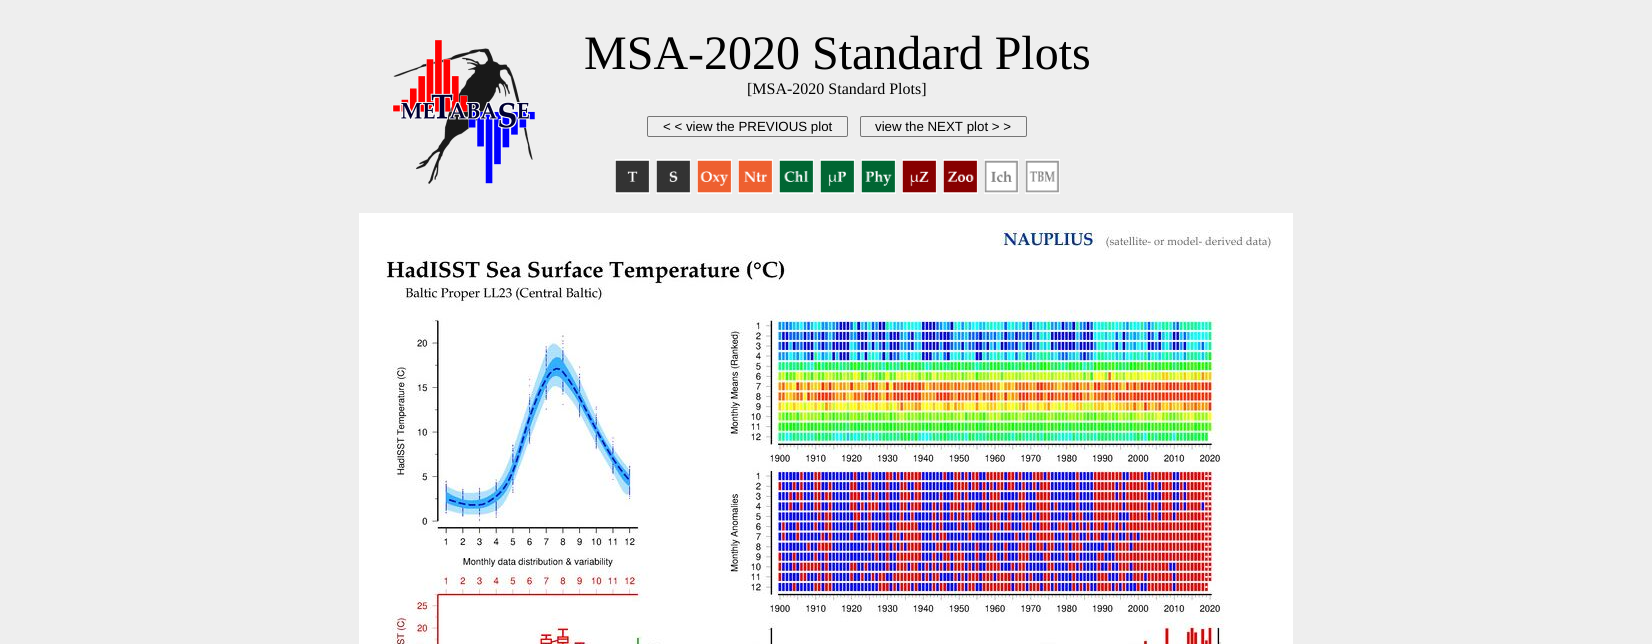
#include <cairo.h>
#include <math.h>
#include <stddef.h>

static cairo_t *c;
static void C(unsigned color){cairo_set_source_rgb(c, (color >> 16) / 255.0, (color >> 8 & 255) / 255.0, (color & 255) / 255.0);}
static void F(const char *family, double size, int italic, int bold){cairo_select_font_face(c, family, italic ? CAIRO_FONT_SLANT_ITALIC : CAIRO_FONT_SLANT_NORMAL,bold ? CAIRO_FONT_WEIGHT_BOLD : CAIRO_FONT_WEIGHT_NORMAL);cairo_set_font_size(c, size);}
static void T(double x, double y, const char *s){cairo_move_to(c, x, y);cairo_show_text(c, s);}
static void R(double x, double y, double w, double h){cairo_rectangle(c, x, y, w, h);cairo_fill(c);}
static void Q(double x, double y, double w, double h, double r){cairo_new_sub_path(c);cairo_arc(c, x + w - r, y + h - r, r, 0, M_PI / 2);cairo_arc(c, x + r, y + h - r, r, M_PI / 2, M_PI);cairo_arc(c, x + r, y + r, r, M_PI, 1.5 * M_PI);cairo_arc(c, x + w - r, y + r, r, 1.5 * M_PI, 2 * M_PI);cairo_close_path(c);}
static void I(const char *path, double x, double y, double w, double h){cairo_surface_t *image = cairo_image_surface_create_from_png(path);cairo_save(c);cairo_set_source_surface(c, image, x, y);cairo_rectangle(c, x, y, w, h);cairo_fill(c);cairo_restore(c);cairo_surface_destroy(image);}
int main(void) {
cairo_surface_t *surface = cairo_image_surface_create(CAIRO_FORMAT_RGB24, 1652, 644);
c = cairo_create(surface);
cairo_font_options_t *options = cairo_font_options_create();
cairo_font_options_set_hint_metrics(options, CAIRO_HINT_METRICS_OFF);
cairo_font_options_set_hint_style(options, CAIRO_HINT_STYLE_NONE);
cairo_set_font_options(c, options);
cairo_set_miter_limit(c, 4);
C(0xeeeeee);
cairo_paint(c);
I("1.png",392,40,143,144);
F("Liberation Serif",48,0,0);
C(0x000000);
T(584,69,"MSA-2020 Standard Plots");
F("Liberation Serif",16,0,0);
T(747,94,"[MSA-2020 Standard Plots]");
Q(647.5,116.5,200,20,1.5);
C(0x767676);
cairo_set_line_width(c,1);
cairo_stroke(c);
F("Liberation Sans",13.3,0,0);
C(0x000000);
T(663,131,"< < view the PREVIOUS plot");
Q(860.5,116.5,166,20,1.5);
C(0x767676);
cairo_stroke(c);
C(0x000000);
T(875,131,"view the NEXT plot > >");
I("2.png",615,159,35,35);
I("3.png",656,159,35,35);
I("4.png",697,159,35,35);
I("5.png",738,159,35,35);
I("6.png",779,159,35,35);
I("7.png",820,159,35,35);
I("8.png",861,159,35,35);
I("9.png",902,159,35,35);
I("10.png",943,159,35,35);
I("11.png",984,159,35,35);
I("12.png",1025,159,35,35);
C(0xffffff);
R(359,213,934,431);
I("13.png",384,230,888,414);
cairo_surface_write_to_png(surface, "o.png");
cairo_font_options_destroy(options);
cairo_destroy(c);
cairo_surface_destroy(surface);
return 0;
}
